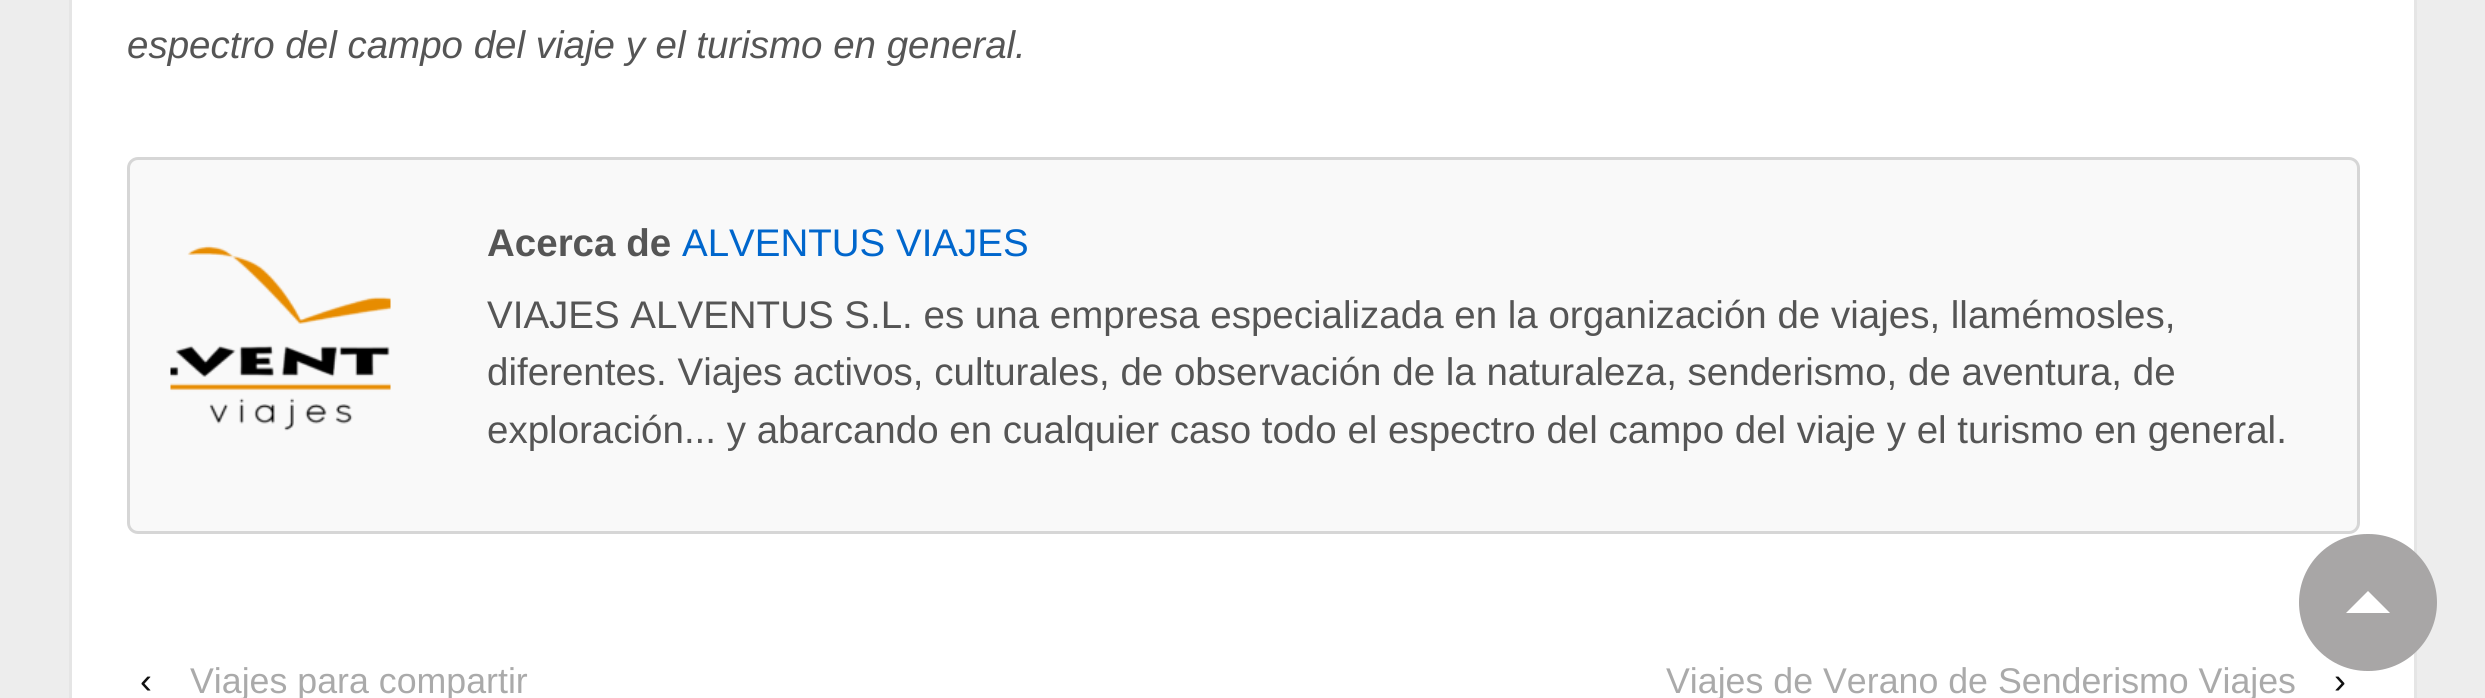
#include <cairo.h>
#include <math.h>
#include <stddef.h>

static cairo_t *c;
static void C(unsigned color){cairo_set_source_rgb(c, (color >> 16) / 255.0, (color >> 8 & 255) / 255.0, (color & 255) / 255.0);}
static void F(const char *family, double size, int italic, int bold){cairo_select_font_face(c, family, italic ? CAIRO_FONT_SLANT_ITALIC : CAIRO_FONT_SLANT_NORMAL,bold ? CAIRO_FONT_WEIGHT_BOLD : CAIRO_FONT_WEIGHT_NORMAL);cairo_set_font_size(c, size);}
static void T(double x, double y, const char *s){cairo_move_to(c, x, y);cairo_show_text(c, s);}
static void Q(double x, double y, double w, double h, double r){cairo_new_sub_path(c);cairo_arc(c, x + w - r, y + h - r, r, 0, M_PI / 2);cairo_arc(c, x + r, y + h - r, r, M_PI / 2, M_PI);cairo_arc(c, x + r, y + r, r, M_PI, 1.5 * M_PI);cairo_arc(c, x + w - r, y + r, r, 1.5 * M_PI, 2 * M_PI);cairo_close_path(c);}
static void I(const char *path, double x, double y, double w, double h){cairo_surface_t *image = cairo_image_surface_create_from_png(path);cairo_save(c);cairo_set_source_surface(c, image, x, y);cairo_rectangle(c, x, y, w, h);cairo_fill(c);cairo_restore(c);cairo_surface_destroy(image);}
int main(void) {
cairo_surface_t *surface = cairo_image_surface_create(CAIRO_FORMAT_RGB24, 2485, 698);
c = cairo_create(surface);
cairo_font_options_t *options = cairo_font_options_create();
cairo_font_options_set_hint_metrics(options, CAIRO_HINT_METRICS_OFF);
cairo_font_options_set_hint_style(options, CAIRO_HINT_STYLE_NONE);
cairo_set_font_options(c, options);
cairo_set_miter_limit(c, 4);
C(0xededed);
cairo_paint(c);
C(0xffffff);
cairo_rectangle(c,70.5,-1.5,2345,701);
cairo_fill_preserve(c);
C(0xe5e5e5);
cairo_set_line_width(c,3);
cairo_stroke(c);
F("Liberation Sans",38.5,1,0);
C(0x555555);
T(127,58,"espectro del campo del viaje y el turismo en general.");
C(0xf9f9f9);
Q(128.5,158.5,2230,374,9.5);
cairo_fill_preserve(c);
C(0xd6d6d6);
cairo_stroke(c);
I("1.png",170,245,221,186);
F("Liberation Sans",38.5,0,1);
C(0x555555);
T(487,256,"Acerca de");
F("Liberation Sans",38.5,0,0);
C(0x0066cc);
T(682,256,"ALVENTUS VIAJES");
C(0x555555);
T(487,328,"VIAJES ALVENTUS S.L. es una empresa especializada en la organización de viajes, llamémosles,");
T(487,385,"diferentes. Viajes activos, culturales, de observación de la naturaleza, senderismo, de aventura, de");
T(487,443,"exploración... y abarcando en cualquier caso todo el espectro del campo del viaje y el turismo en general.");
F("Liberation Sans",35.75,0,0);
C(0x111111);
T(140,693,"‹");
C(0xaaaaaa);
T(190,693,"Viajes para compartir");
T(1666,693,"Viajes de Verano de Senderismo Viajes");
C(0x111111);
T(2334,693,"›");
C(0xa8a6a6);
Q(2299,534,138,137,68.5);
cairo_fill(c);
C(0xffffff);
cairo_new_path(c);
cairo_move_to(c,2390,613);
cairo_line_to(c,2346,613);
cairo_line_to(c,2368,591);
cairo_close_path(c);
cairo_fill(c);
cairo_surface_write_to_png(surface, "o.png");
cairo_font_options_destroy(options);
cairo_destroy(c);
cairo_surface_destroy(surface);
return 0;
}
